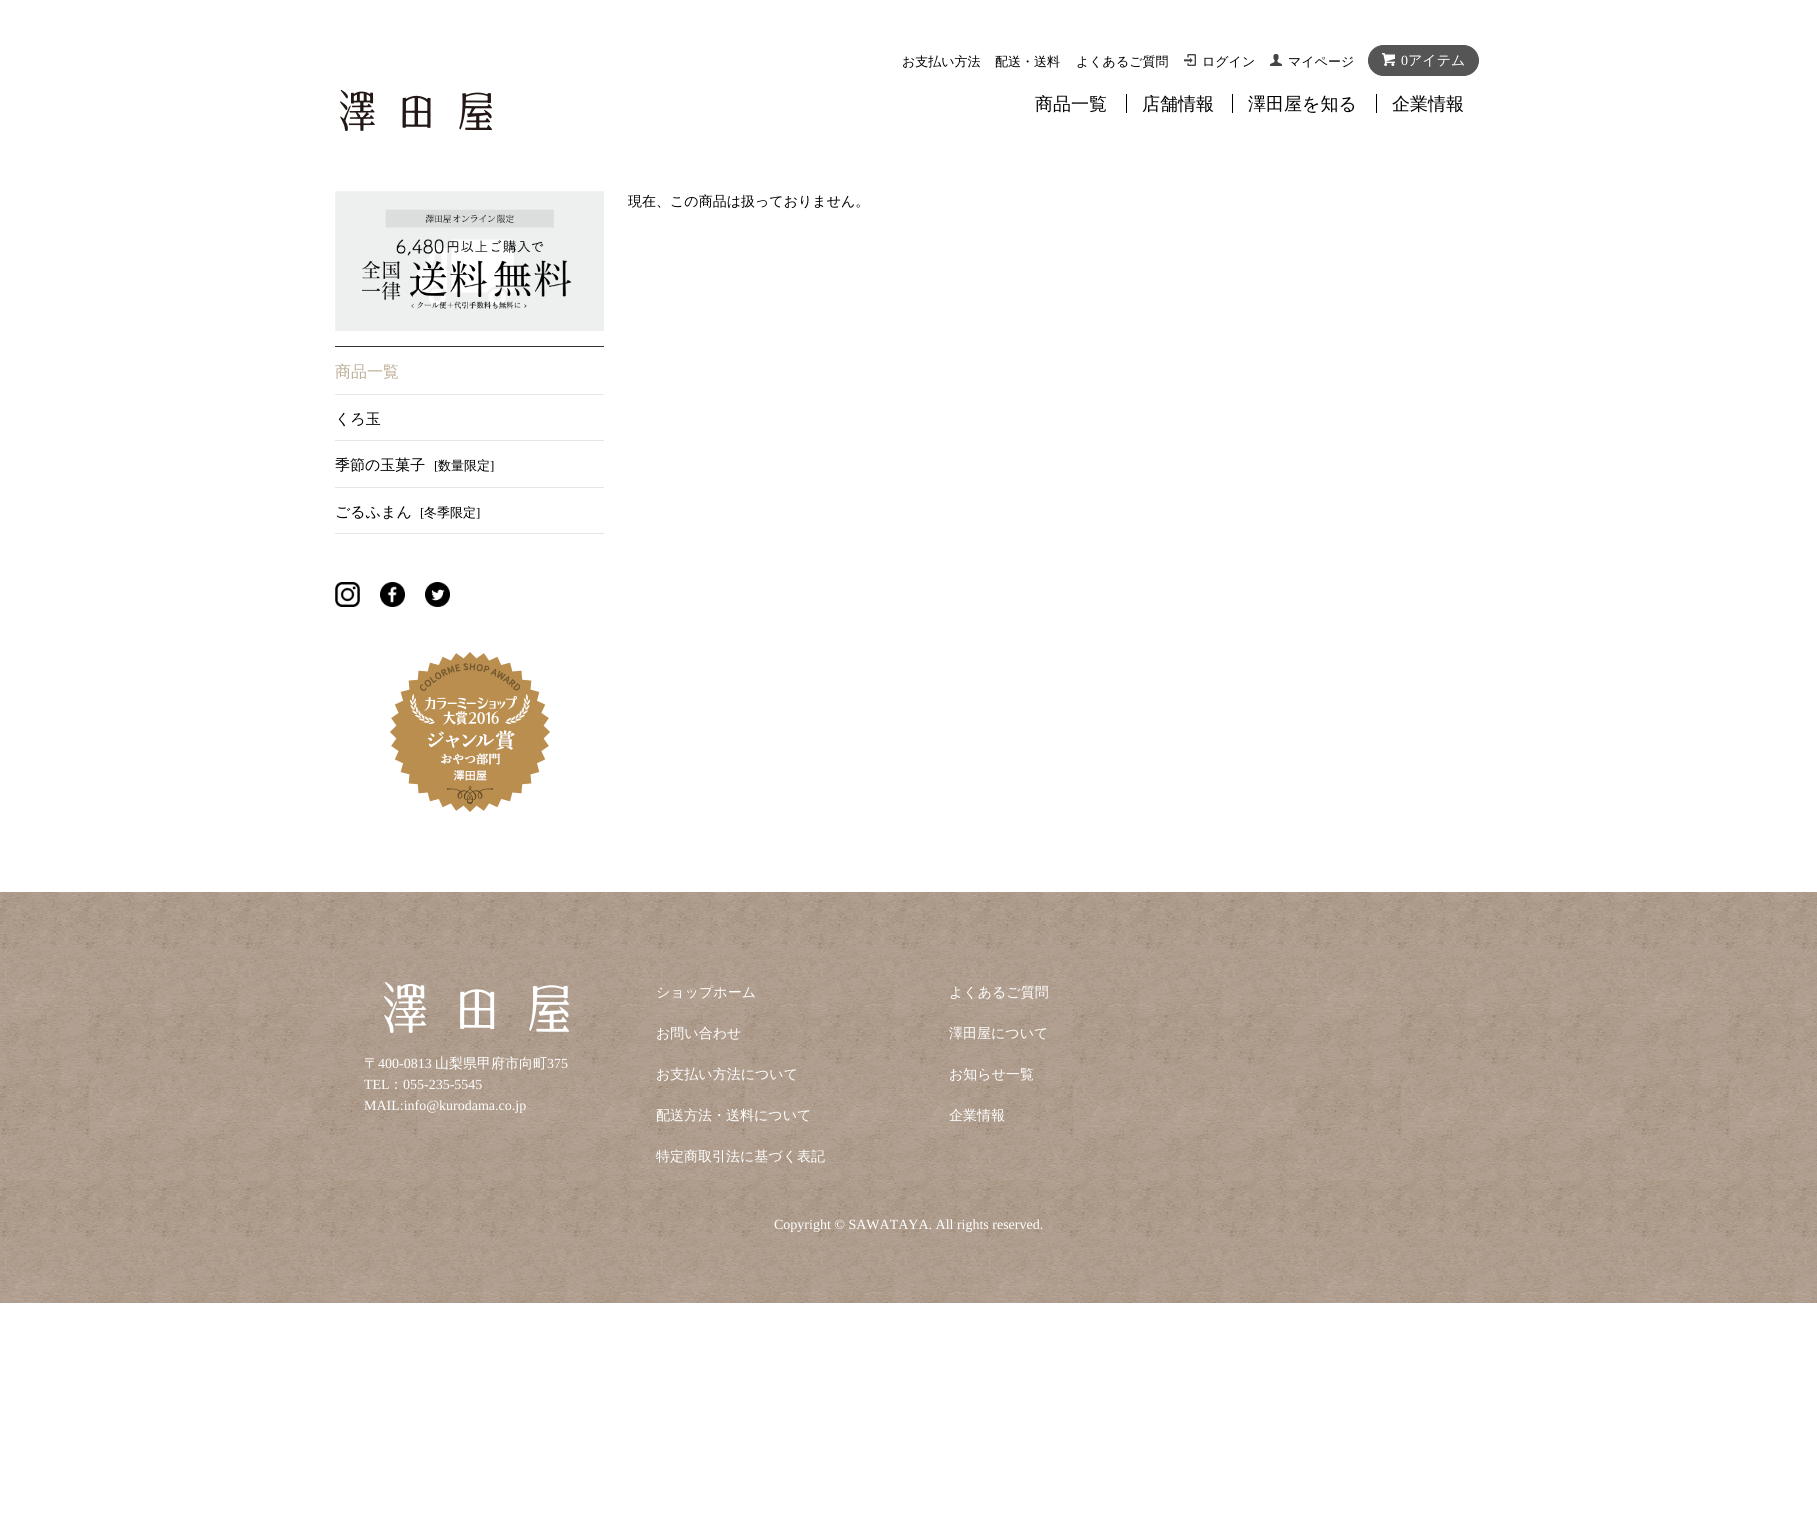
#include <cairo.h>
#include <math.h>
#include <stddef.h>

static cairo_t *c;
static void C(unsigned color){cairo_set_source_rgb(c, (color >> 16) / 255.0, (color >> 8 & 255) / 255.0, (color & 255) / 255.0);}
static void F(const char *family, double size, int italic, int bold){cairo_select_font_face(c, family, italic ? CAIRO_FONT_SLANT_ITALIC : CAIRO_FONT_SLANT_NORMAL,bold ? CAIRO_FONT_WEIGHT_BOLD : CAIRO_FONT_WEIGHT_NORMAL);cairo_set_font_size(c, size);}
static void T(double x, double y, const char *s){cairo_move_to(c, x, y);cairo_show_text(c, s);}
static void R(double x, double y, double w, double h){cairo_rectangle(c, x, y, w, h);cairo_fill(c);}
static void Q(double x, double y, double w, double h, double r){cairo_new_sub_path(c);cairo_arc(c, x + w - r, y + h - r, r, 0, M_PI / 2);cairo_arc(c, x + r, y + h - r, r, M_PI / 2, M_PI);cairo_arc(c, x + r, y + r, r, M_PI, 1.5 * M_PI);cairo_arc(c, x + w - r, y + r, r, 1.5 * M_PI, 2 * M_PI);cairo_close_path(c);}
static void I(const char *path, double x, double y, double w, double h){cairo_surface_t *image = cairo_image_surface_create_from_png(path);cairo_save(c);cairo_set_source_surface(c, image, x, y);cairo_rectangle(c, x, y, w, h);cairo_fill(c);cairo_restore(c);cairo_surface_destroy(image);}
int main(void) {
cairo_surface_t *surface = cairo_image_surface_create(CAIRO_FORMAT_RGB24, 1817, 1528);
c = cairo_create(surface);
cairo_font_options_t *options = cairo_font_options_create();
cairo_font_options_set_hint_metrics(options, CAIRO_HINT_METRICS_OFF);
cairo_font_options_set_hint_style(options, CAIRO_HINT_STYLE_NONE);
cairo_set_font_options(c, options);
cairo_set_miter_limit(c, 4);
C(0xffffff);
cairo_paint(c);
F("WenQuanYi Zen Hei Medium",13,0,0);
C(0x000000);
T(902,66,"お支払い方法");
T(995,66,"配送・送料");
T(1076,66,"よくあるご質問");
I("1.png",1184,54,12,12);
T(1202,66,"ログイン");
I("2.png",1270,54,12,12);
T(1288,66,"マイページ");
C(0x555555);
Q(1368.5,45.5,110,30,15);
cairo_fill_preserve(c);
cairo_set_line_width(c,1);
cairo_stroke(c);
I("3.png",1382,53,13,13);
F("Liberation Serif",14,0,0);
C(0xffffff);
T(1401,65,"0");
F("WenQuanYi Zen Hei Medium",14,0,0);
T(1408,65,"アイテム");
I("4.png",340,90,152,41);
F("WenQuanYi Zen Hei Medium",18,0,0);
C(0x000000);
T(1035,110,"商品一覧");
R(1126,94,1,19);
T(1142,110,"店舗情報");
R(1232,94,1,19);
T(1248,110,"澤田屋を知る");
R(1376,94,1,19);
T(1392,110,"企業情報");
F("WenQuanYi Zen Hei Medium",14,0,0);
T(628,206,"現在、この商品は扱っておりません。");
I("5.png",335,191,269,140);
C(0x333333);
R(335,346,269,1);
C(0xe8e8e8);
R(335,394,269,1);
F("WenQuanYi Zen Hei Medium",16,0,0);
C(0xbcac95);
T(335,377,"商品一覧");
C(0xe5e5e5);
R(335,440,269,1);
F("WenQuanYi Zen Hei Medium",15,0,0);
C(0x000000);
T(335,424,"くろ玉");
C(0xe5e5e5);
R(335,487,269,1);
C(0x000000);
T(335,470,"季節の玉菓子");
F("Liberation Serif",13,0,0);
T(434,470,"[");
F("WenQuanYi Zen Hei Medium",13,0,0);
T(438,470,"数量限定");
F("Liberation Serif",13,0,0);
T(490,470,"]");
C(0xe5e5e5);
R(335,533,269,1);
F("WenQuanYi Zen Hei Medium",15,0,0);
C(0x000000);
T(335,517,"ごるふまん");
F("Liberation Serif",13,0,0);
T(420,517,"[");
F("WenQuanYi Zen Hei Medium",13,0,0);
T(424,517,"冬季限定");
F("Liberation Serif",13,0,0);
T(476,517,"]");
I("6.png",335,582,25,25);
I("7.png",380,582,25,25);
I("8.png",425,582,25,25);
I("9.png",390,652,160,160);
I("10.png",0,892,1817,411);
I("11.png",384,982,185,51);
F("WenQuanYi Zen Hei Medium",14,0,0);
C(0xffffff);
T(364,1068,"〒");
F("Liberation Serif",14,0,0);
T(378,1068,"400-0813");
F("WenQuanYi Zen Hei Medium",14,0,0);
T(435,1068,"山梨県甲府市向町");
F("Liberation Serif",14,0,0);
T(547,1068,"375");
T(364,1089,"TEL");
F("WenQuanYi Zen Hei Medium",14,0,0);
T(389,1089,"：");
F("Liberation Serif",14,0,0);
T(403,1089,"055-235-5545");
T(364,1110,"MAIL:info@kurodama.co.jp");
F("WenQuanYi Zen Hei Medium",14,0,0);
T(656,997,"ショップホーム");
T(656,1038,"お問い合わせ");
T(656,1079,"お支払い方法について");
T(656,1120,"配送方法・送料について");
T(656,1161,"特定商取引法に基づく表記");
T(949,997,"よくあるご質問");
T(949,1038,"澤田屋について");
T(949,1079,"お知らせ一覧");
T(949,1120,"企業情報");
F("Liberation Serif",14,0,0);
T(774,1229,"Copyright © SAWATAYA. All rights reserved.");
cairo_surface_write_to_png(surface, "o.png");
cairo_font_options_destroy(options);
cairo_destroy(c);
cairo_surface_destroy(surface);
return 0;
}
